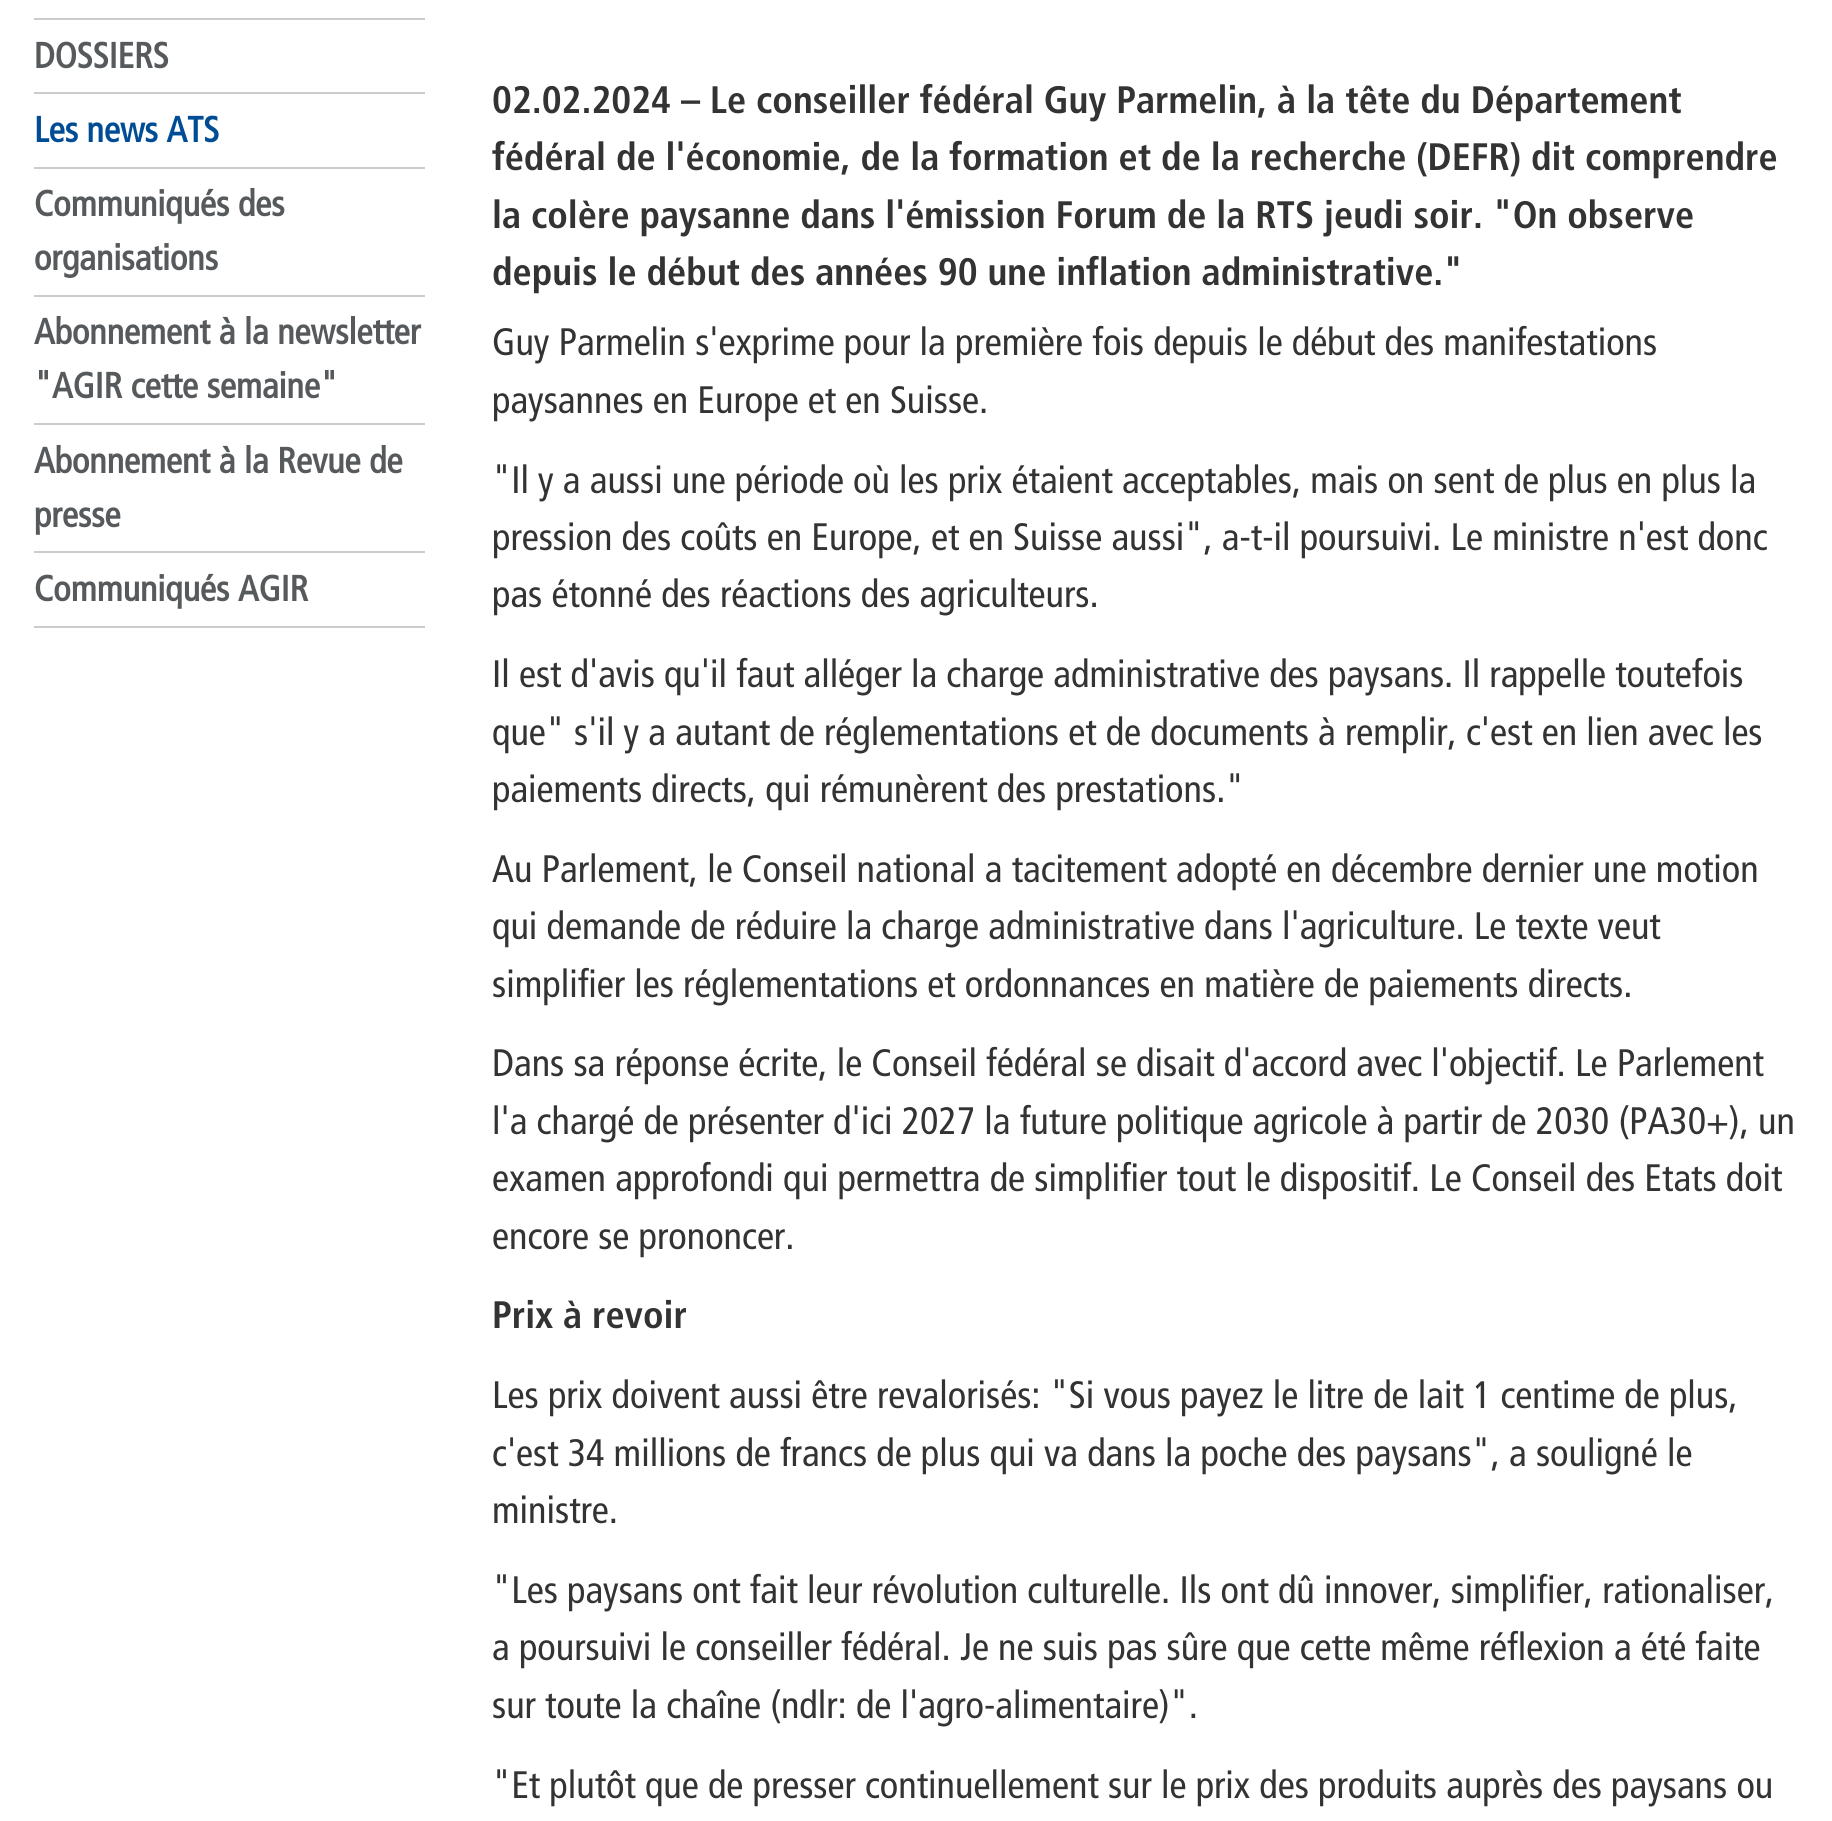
#include <cairo.h>
#include <math.h>
#include <stddef.h>

static cairo_t *c;
static void C(unsigned color){cairo_set_source_rgb(c, (color >> 16) / 255.0, (color >> 8 & 255) / 255.0, (color & 255) / 255.0);}
static void F(const char *family, double size, int italic, int bold){cairo_select_font_face(c, family, italic ? CAIRO_FONT_SLANT_ITALIC : CAIRO_FONT_SLANT_NORMAL,bold ? CAIRO_FONT_WEIGHT_BOLD : CAIRO_FONT_WEIGHT_NORMAL);cairo_set_font_size(c, size);}
static void T(double x, double y, const char *s){cairo_move_to(c, x, y);cairo_show_text(c, s);}
static void R(double x, double y, double w, double h){cairo_rectangle(c, x, y, w, h);cairo_fill(c);}
int main(void) {
cairo_surface_t *surface = cairo_image_surface_create(CAIRO_FORMAT_RGB24, 1832, 1821);
c = cairo_create(surface);
cairo_font_options_t *options = cairo_font_options_create();
cairo_font_options_set_hint_metrics(options, CAIRO_HINT_METRICS_OFF);
cairo_font_options_set_hint_style(options, CAIRO_HINT_STYLE_NONE);
cairo_set_font_options(c, options);
cairo_set_miter_limit(c, 4);
C(0xffffff);
cairo_paint(c);
C(0xcccccc);
R(34,18,391,2);
R(34,92,391,2);
F("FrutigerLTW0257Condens",36,0,1);
C(0x565a5c);
T(34,68,"DOSSIERS");
C(0xcccccc);
R(34,167,391,2);
C(0x004d95);
T(34,142,"Les news ATS");
C(0xcccccc);
R(34,295,391,2);
C(0x565a5c);
T(34,216,"Communiqués des");
T(34,270,"organisations");
C(0xcccccc);
R(34,423,391,2);
C(0x565a5c);
T(34,344,"Abonnement à la newsletter");
T(34,398,"\"AGIR cette semaine\"");
C(0xcccccc);
R(34,551,391,2);
C(0x565a5c);
T(34,473,"Abonnement à la Revue de");
T(34,527,"presse");
C(0xcccccc);
R(34,626,391,2);
C(0x565a5c);
T(34,601,"Communiqués AGIR");
F("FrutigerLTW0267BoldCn",38.25,0,1);
C(0x333333);
T(492,113,"02.02.2024 – Le conseiller fédéral Guy Parmelin, à la tête du Département");
T(492,170,"fédéral de l'économie, de la formation et de la recherche (DEFR) dit comprendre");
T(492,228,"la colère paysanne dans l'émission Forum de la RTS jeudi soir. \"On observe");
T(492,285,"depuis le début des années 90 une inflation administrative.\"");
F("FrutigerLTW0257Condens",38.25,0,0);
T(492,355,"Guy Parmelin s'exprime pour la première fois depuis le début des manifestations");
T(492,413,"paysannes en Europe et en Suisse.");
T(492,493,"\"Il y a aussi une période où les prix étaient acceptables, mais on sent de plus en plus la");
T(492,550,"pression des coûts en Europe, et en Suisse aussi\", a-t-il poursuivi. Le ministre n'est donc");
T(492,607,"pas étonné des réactions des agriculteurs.");
T(492,687,"Il est d'avis qu'il faut alléger la charge administrative des paysans. Il rappelle toutefois");
T(492,745,"que\" s'il y a autant de réglementations et de documents à remplir, c'est en lien avec les");
T(492,802,"paiements directs, qui rémunèrent des prestations.\"");
T(492,882,"Au Parlement, le Conseil national a tacitement adopté en décembre dernier une motion");
T(492,939,"qui demande de réduire la charge administrative dans l'agriculture. Le texte veut");
T(492,997,"simplifier les réglementations et ordonnances en matière de paiements directs.");
T(492,1076,"Dans sa réponse écrite, le Conseil fédéral se disait d'accord avec l'objectif. Le Parlement");
T(492,1134,"l'a chargé de présenter d'ici 2027 la future politique agricole à partir de 2030 (PA30+), un");
T(492,1191,"examen approfondi qui permettra de simplifier tout le dispositif. Le Conseil des Etats doit");
T(492,1249,"encore se prononcer.");
F("FrutigerLTW0267BoldCn",38.25,0,1);
T(492,1328,"Prix à revoir");
F("FrutigerLTW0257Condens",38.25,0,0);
T(492,1408,"Les prix doivent aussi être revalorisés: \"Si vous payez le litre de lait 1 centime de plus,");
T(492,1466,"c'est 34 millions de francs de plus qui va dans la poche des paysans\", a souligné le");
T(492,1523,"ministre.");
T(492,1603,"\"Les paysans ont fait leur révolution culturelle. Ils ont dû innover, simplifier, rationaliser,");
T(492,1660,"a poursuivi le conseiller fédéral. Je ne suis pas sûre que cette même réflexion a été faite");
T(492,1718,"sur toute la chaîne (ndlr: de l'agro-alimentaire)\".");
T(492,1798,"\"Et plutôt que de presser continuellement sur le prix des produits auprès des paysans ou");
cairo_surface_write_to_png(surface, "o.png");
cairo_font_options_destroy(options);
cairo_destroy(c);
cairo_surface_destroy(surface);
return 0;
}
